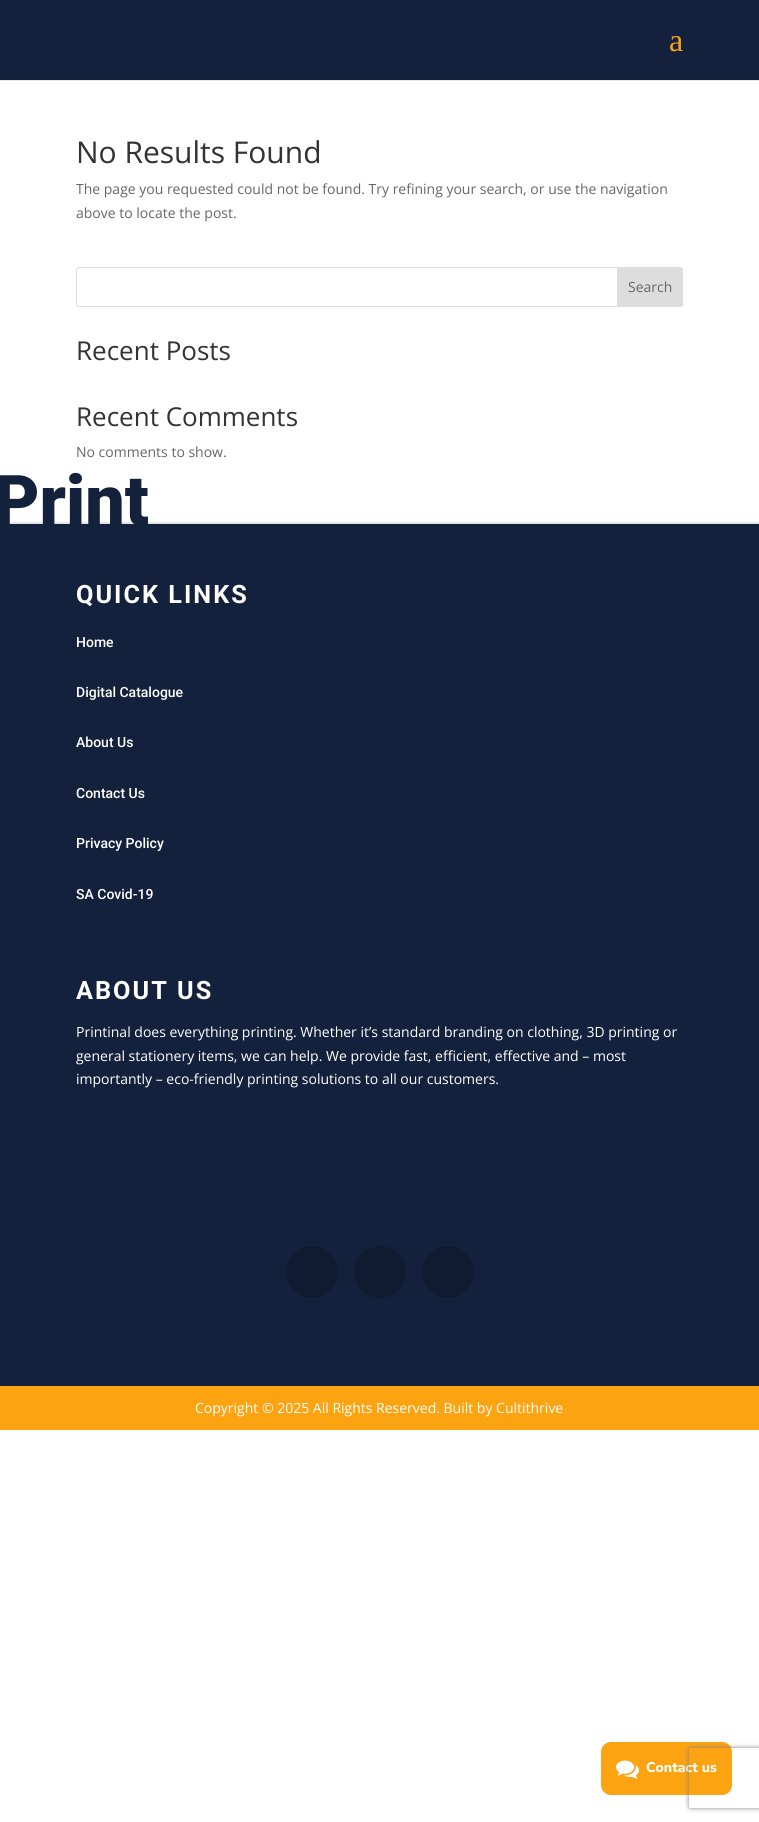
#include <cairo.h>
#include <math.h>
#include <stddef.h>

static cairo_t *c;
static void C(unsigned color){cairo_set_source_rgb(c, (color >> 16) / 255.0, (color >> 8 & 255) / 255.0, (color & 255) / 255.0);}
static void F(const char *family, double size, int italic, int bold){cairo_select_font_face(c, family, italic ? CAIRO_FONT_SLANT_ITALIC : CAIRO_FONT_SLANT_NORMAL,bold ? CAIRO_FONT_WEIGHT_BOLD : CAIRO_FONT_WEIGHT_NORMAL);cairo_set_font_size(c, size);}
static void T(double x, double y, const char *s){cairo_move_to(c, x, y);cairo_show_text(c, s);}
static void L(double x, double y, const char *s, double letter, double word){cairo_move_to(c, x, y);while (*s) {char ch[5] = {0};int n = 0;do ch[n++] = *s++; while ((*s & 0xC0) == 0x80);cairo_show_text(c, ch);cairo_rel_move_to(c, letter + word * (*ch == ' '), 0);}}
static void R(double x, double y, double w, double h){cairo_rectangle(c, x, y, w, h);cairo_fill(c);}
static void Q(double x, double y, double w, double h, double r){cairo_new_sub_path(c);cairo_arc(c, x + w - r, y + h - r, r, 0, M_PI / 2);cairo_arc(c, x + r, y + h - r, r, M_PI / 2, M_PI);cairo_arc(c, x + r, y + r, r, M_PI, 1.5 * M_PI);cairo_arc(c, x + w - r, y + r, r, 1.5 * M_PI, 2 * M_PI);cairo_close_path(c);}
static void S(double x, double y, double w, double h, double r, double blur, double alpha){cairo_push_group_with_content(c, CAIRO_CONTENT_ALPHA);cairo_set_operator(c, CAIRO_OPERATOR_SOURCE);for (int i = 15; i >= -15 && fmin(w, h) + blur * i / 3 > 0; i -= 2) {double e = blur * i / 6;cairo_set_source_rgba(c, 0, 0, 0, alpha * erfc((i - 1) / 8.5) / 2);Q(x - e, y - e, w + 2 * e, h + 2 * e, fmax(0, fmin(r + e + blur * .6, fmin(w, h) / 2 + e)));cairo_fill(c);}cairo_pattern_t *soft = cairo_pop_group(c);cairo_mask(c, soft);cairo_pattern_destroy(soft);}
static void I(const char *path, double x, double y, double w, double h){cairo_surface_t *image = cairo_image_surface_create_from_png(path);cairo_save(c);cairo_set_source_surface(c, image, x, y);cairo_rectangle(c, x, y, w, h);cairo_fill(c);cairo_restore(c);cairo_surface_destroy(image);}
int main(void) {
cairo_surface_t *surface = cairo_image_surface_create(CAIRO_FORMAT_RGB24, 759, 1822);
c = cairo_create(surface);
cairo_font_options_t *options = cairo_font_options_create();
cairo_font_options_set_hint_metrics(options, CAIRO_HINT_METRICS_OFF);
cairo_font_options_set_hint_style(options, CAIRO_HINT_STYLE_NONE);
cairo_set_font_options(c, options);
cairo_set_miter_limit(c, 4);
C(0xffffff);
cairo_paint(c);
C(0xe6e6e6);
R(0,80,759,1);
C(0x14213d);
R(0,0,759,80);
F("Liberation Serif",32,0,0);
C(0xfba310);
T(669,51,"a");
F("Open Sans",30,0,0);
C(0x333333);
T(76,163,"No Results Found");
F("Open Sans",14,0,0);
C(0x666666);
T(76,194,"The page you requested could not be found. Try refining your search, or use the navigation");
T(76,218,"above to locate the post.");
Q(76.5,267.5,606,39,2.5);
C(0xdddddd);
cairo_set_line_width(c,1);
cairo_stroke(c);
cairo_new_path(c);
cairo_move_to(c,617.5,267.5);
cairo_line_to(c,680,267.5);
cairo_curve_to(c,681.5,267.5,682.5,268.5,682.5,270);
cairo_line_to(c,682.5,304);
cairo_curve_to(c,682.5,305.5,681.5,306.5,680,306.5);
cairo_line_to(c,617.5,306.5);
cairo_close_path(c);
cairo_fill_preserve(c);
cairo_stroke(c);
C(0x666666);
T(628,292,"Search");
F("Open Sans",26,0,0);
C(0x333333);
T(76,360,"Recent Posts");
T(76,426,"Recent Comments");
F("Open Sans",14,0,0);
C(0x666666);
T(76,457,"No comments to show.");
C(0x14213d);
R(0,524,759,862);
C(0xe5e5e5);
R(0,522,759,2);
F("Roboto Black",70,0,0);
C(0x14213d);
T(-6,525,"Print");
F("Roboto",25.25,0,1);
C(0xffffff);
L(76,603,"QUICK LINKS",2,0);
F("Roboto Medium",14,0,0);
T(76,647,"Home");
T(76,697,"Digital Catalogue");
T(76,747,"About Us");
T(76,798,"Contact Us");
T(76,848,"Privacy Policy");
T(76,899,"SA Covid-19");
F("Roboto",25.25,0,1);
L(76,999,"ABOUT US",2,0);
F("Open Sans",14,0,0);
T(76,1037,"Printinal does everything printing. Whether it’s standard branding on clothing, 3D printing or");
T(76,1061,"general stationery items, we can help. We provide fast, efficient, effective and – most");
T(76,1084,"importantly – eco-friendly printing solutions to all our customers.");
C(0xfca311);
Q(601,1742,131,53,10);
cairo_fill(c);
I("1.png",616,1760,23,19);
F("Nunito Sans ExtraBold",14,0,0);
C(0xffffff);
T(646,1772,"Contact us");
C(0x101a31);
cairo_new_path(c);
cairo_arc(c,312,1272,26,0,2 * M_PI);
cairo_fill(c);
cairo_arc(c,380,1272,26,0,2 * M_PI);
cairo_fill(c);
cairo_arc(c,448,1272,26,0,2 * M_PI);
cairo_fill(c);
C(0xfca311);
R(0,1386,759,44);
F("Open Sans",14,0,0);
C(0xffffff);
T(195,1413,"Copyright © 2025 All Rights Reserved. Built by Cultithrive");
cairo_save(c);
cairo_set_fill_rule(c,CAIRO_FILL_RULE_EVEN_ODD);
cairo_new_path(c);
cairo_move_to(c,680,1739);
cairo_line_to(c,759,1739);
cairo_line_to(c,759,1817);
cairo_line_to(c,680,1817);
cairo_close_path(c);
cairo_move_to(c,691,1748);
cairo_line_to(c,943,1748);
cairo_curve_to(c,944,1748,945,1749,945,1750);
cairo_line_to(c,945,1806);
cairo_curve_to(c,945,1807,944,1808,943,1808);
cairo_line_to(c,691,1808);
cairo_curve_to(c,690,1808,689,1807,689,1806);
cairo_line_to(c,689,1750);
cairo_curve_to(c,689,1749,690,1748,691,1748);
cairo_close_path(c);
cairo_clip(c);
C(0x808080);
S(689,1748,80,60,2,2.5,1);
cairo_restore(c);
cairo_surface_write_to_png(surface, "o.png");
cairo_font_options_destroy(options);
cairo_destroy(c);
cairo_surface_destroy(surface);
return 0;
}
